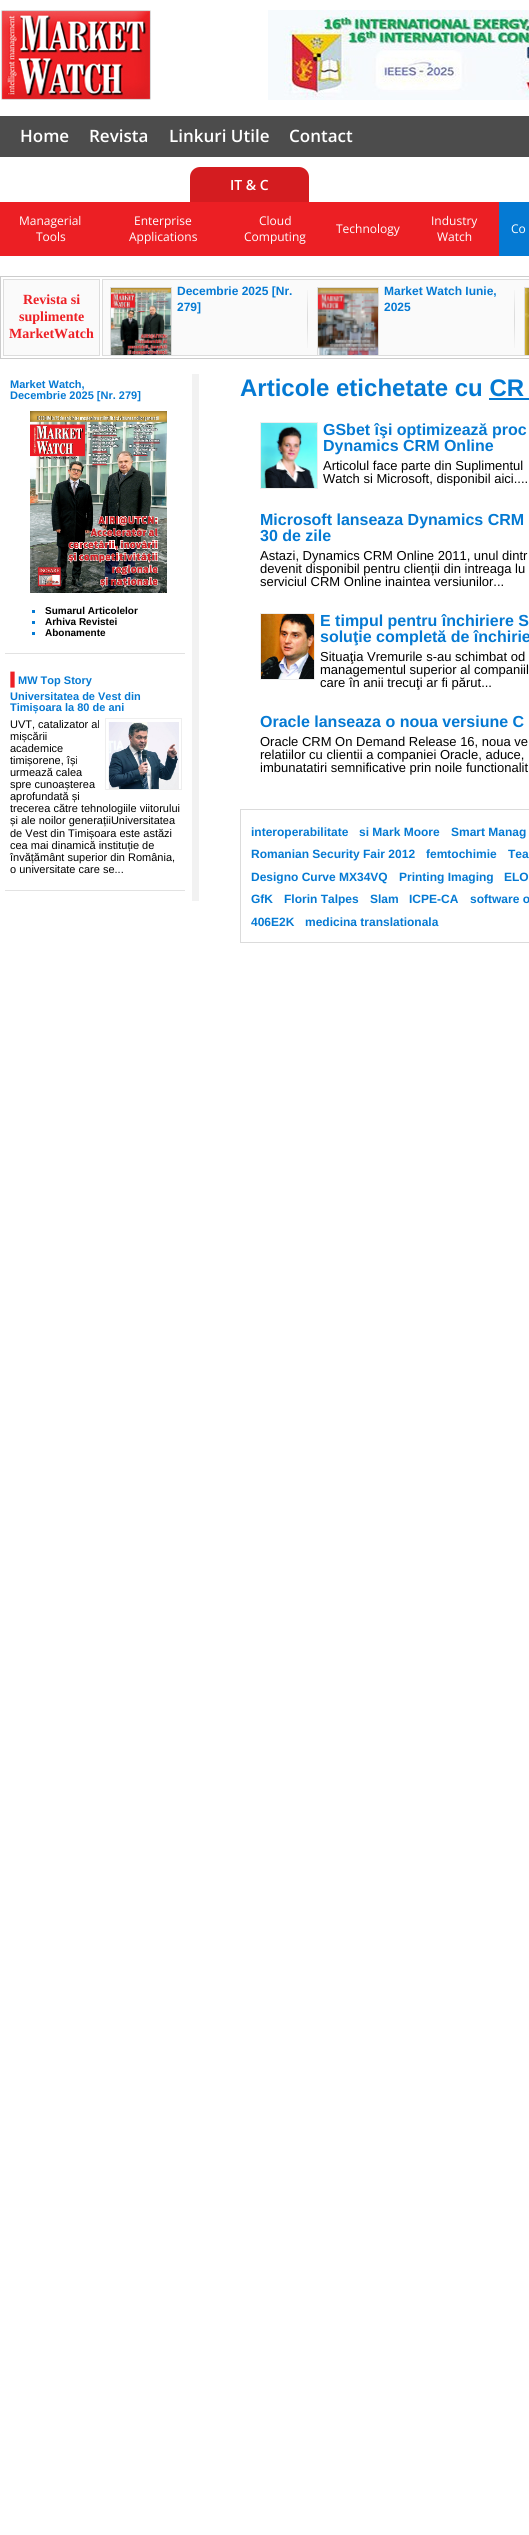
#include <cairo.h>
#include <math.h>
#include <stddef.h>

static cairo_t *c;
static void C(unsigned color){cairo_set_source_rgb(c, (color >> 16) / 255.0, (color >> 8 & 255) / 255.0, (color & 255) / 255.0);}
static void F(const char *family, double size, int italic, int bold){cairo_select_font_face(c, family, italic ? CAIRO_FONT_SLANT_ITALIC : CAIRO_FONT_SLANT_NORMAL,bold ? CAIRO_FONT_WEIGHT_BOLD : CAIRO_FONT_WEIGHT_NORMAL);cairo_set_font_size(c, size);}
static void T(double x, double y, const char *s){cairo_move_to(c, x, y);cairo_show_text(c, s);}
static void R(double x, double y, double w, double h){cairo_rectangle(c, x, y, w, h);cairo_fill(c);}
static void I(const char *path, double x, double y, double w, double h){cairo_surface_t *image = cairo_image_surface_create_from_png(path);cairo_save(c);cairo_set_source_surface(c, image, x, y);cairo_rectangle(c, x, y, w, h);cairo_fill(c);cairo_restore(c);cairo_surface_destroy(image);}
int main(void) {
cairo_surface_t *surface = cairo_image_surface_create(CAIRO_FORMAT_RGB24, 529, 2535);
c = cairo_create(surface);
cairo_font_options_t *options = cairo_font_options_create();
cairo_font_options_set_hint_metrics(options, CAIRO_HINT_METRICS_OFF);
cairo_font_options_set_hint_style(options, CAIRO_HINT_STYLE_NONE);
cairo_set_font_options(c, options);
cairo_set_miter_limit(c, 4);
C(0xffffff);
cairo_paint(c);
I("1.png",1,10,150,90);
I("2.png",268,10,261,90);
C(0x4c4c4c);
R(0,116,529,41);
F("Open Sans SemiBold",17,0,0);
C(0xffffff);
T(20,142,"Home");
T(89,142,"Revista");
T(169,142,"Linkuri Utile");
T(289,142,"Contact");
C(0xd41c20);
cairo_new_path(c);
cairo_move_to(c,200,167);
cairo_line_to(c,299,167);
cairo_curve_to(c,304.5,167,309,171.5,309,177);
cairo_line_to(c,309,202);
cairo_line_to(c,190,202);
cairo_line_to(c,190,177);
cairo_curve_to(c,190,171.5,194.5,167,200,167);
cairo_close_path(c);
cairo_fill(c);
F("Open Sans SemiBold",14,0,0);
C(0xffffff);
T(230,190,"IT & C");
C(0xec1f24);
R(0,202,499,54);
F("Open Sans",12,0,0);
C(0xffffff);
T(19,225,"Managerial");
T(36,241,"Tools");
T(134,225,"Enterprise");
T(129,241,"Applications");
T(259,225,"Cloud");
T(244,241,"Computing");
T(336,233,"Technology");
T(431,225,"Industry");
T(437,241,"Watch");
C(0x057ad3);
R(499,202,30,54);
C(0xffffff);
T(511,233,"Co");
cairo_rectangle(c,.5,276.5,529,82);
C(0xcccccc);
cairo_set_line_width(c,1);
cairo_stroke(c);
C(0xfafafa);
cairo_rectangle(c,3.5,279.5,96,76);
cairo_fill_preserve(c);
C(0xdddddd);
cairo_stroke(c);
F("Liberation Serif",14,0,1);
C(0xed2025);
T(23,304,"Revista si");
T(19,321,"suplimente");
T(9,338,"MarketWatch");
C(0xfafafa);
cairo_rectangle(c,102.5,279.5,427,76);
cairo_fill_preserve(c);
C(0xdddddd);
cairo_stroke(c);
I("3.png",307,290,1,58);
cairo_save(c);
cairo_rectangle(c,105,282,207,73);
cairo_clip(c);
cairo_rectangle(c,110.5,287.5,61,81);
cairo_stroke(c);
cairo_restore(c);
I("4.png",111,288,60,67);
F("Liberation Sans",12,0,1);
C(0x057ad3);
T(177,295,"Decembrie 2025 [Nr.");
T(177,311,"279]");
I("3.png",514,290,1,58);
cairo_save(c);
cairo_rectangle(c,312,282,207,73);
cairo_clip(c);
cairo_rectangle(c,317.5,287.5,61,81);
C(0xdddddd);
cairo_stroke(c);
cairo_restore(c);
I("5.png",318,288,60,67);
T(384,295,"Market Watch Iunie,");
T(384,311,"2025");
cairo_save(c);
cairo_rectangle(c,519,282,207,73);
cairo_clip(c);
cairo_rectangle(c,524.5,287.5,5,81);
C(0xdddddd);
cairo_stroke(c);
cairo_restore(c);
I("6.png",525,288,4,67);
C(0xf2f2f2);
R(192,374,7,527);
F("Liberation Sans",11,0,1);
C(0x057ad3);
T(10,388,"Market Watch,");
T(10,399,"Decembrie 2025 [Nr. 279]");
I("7.png",30,411,137,182);
R(32,610,3,3);
F("Liberation Sans",10,0,1);
C(0x000000);
T(45,614,"Sumarul Articolelor");
C(0x057ad3);
R(32,621,3,3);
C(0x000000);
T(45,625,"Arhiva Revistei");
C(0x057ad3);
R(32,632,3,3);
C(0x000000);
T(45,636,"Abonamente");
C(0xe2e2e2);
R(5,653,180,1);
I("8.png",10,671,5,17);
F("Liberation Sans",11,0,1);
C(0x057ad3);
T(18,684,"MW Top Story");
T(10,700,"Universitatea de Vest din");
T(10,711,"Timișoara la 80 de ani");
F("Liberation Sans",11,0,0);
C(0x000000);
T(10,728,"UVT, catalizator al");
cairo_rectangle(c,105.5,718.5,76,71);
C(0xeeeeee);
cairo_stroke(c);
I("9.png",108,722,71,67);
C(0x000000);
T(10,740,"mișcării");
T(10,752,"academice");
T(10,764,"timișorene, își");
T(10,776,"urmează calea");
T(10,788,"spre cunoașterea");
T(10,800,"aprofundată și");
T(10,812,"trecerea către tehnologiile viitorului");
T(10,824,"și ale noilor generațiiUniversitatea");
T(10,837,"de Vest din Timișoara este astăzi");
T(10,849,"cea mai dinamică instituție de");
T(10,861,"învățământ superior din România,");
T(10,873,"o universitate care se...");
C(0xe2e2e2);
R(5,890,180,1);
F("Liberation Sans",24,0,1);
C(0x057ad3);
T(240,396,"Articole etichetate cu CR");
R(489,398,40,2);
cairo_rectangle(c,260.5,422.5,57,66);
C(0xeeeeee);
cairo_stroke(c);
I("10.png",261,423,56,65);
F("Liberation Sans",16,0,1);
C(0x057ad3);
T(323,435,"GSbet îşi optimizează proc");
T(323,451,"Dynamics CRM Online");
F("Liberation Sans",13,0,0);
C(0x000000);
T(323,470,"Articolul face parte din Suplimentul");
T(323,483,"Watch si Microsoft, disponibil aici....");
F("Liberation Sans",16,0,1);
C(0x057ad3);
T(260,525,"Microsoft lanseaza Dynamics CRM");
T(260,541,"30 de zile");
F("Liberation Sans",13,0,0);
C(0x000000);
T(260,560,"Astazi, Dynamics CRM Online 2011, unul dintr");
T(260,573,"devenit disponibil pentru clienții din intreaga lu");
T(260,586,"serviciul CRM Online inaintea versiunilor...");
cairo_rectangle(c,260.5,613.5,54,66);
C(0xeeeeee);
cairo_stroke(c);
I("11.png",261,614,53,65);
F("Liberation Sans",16,0,1);
C(0x057ad3);
T(320,626,"E timpul pentru închiriere S");
T(320,642,"soluţie completă de închirie");
F("Liberation Sans",13,0,0);
C(0x000000);
T(320,661,"Situaţia Vremurile s-au schimbat od");
T(320,674,"managementul superior al companiil");
T(320,687,"care în anii trecuţi ar fi părut...");
F("Liberation Sans",16,0,1);
C(0x057ad3);
T(260,727,"Oracle lanseaza o noua versiune C");
F("Liberation Sans",13,0,0);
C(0x000000);
T(260,746,"Oracle CRM On Demand Release 16, noua ve");
T(260,759,"relatiilor cu clientii a companiei Oracle, aduce,");
T(260,772,"imbunatatiri semnificative prin noile functionalit");
cairo_rectangle(c,240.5,809.5,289,133);
C(0xdbdbdb);
cairo_stroke(c);
F("Liberation Sans",12,0,1);
C(0x057ad3);
T(251,836,"interoperabilitate");
T(359,836,"si Mark Moore");
T(451,836,"Smart Manag");
T(251,858,"Romanian Security Fair 2012");
T(426,858,"femtochimie");
T(508,858,"Tea");
T(251,881,"Designo Curve MX34VQ");
T(399,881,"Printing Imaging");
T(504,881,"ELO");
T(251,903,"GfK");
T(284,903,"Florin Talpes");
T(370,903,"Slam");
T(409,903,"ICPE-CA");
T(470,903,"software o");
T(251,926,"406E2K");
T(305,926,"medicina translationala");
cairo_surface_write_to_png(surface, "o.png");
cairo_font_options_destroy(options);
cairo_destroy(c);
cairo_surface_destroy(surface);
return 0;
}
